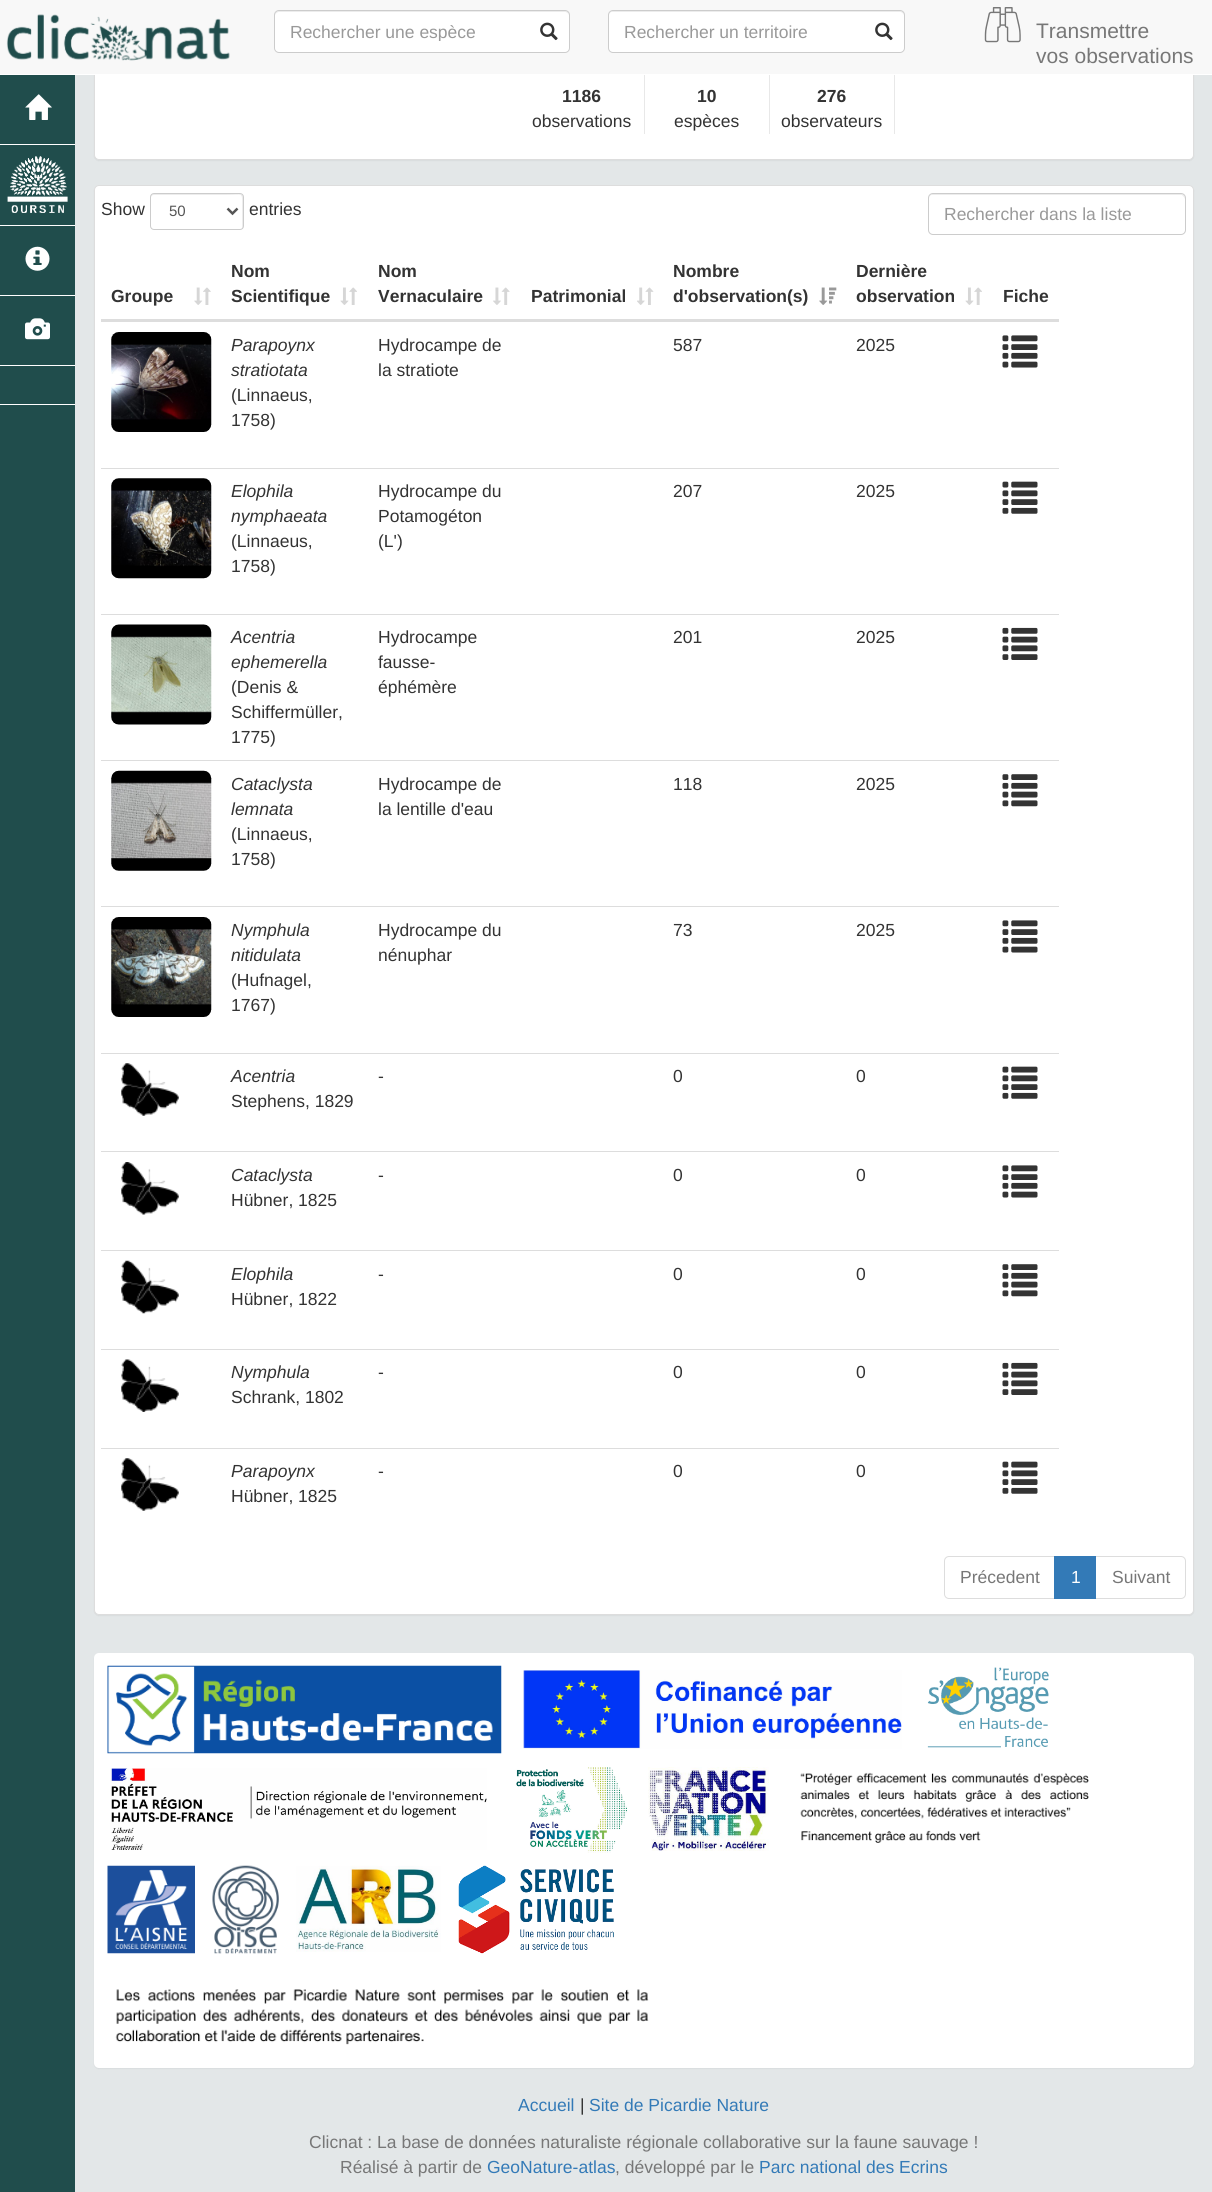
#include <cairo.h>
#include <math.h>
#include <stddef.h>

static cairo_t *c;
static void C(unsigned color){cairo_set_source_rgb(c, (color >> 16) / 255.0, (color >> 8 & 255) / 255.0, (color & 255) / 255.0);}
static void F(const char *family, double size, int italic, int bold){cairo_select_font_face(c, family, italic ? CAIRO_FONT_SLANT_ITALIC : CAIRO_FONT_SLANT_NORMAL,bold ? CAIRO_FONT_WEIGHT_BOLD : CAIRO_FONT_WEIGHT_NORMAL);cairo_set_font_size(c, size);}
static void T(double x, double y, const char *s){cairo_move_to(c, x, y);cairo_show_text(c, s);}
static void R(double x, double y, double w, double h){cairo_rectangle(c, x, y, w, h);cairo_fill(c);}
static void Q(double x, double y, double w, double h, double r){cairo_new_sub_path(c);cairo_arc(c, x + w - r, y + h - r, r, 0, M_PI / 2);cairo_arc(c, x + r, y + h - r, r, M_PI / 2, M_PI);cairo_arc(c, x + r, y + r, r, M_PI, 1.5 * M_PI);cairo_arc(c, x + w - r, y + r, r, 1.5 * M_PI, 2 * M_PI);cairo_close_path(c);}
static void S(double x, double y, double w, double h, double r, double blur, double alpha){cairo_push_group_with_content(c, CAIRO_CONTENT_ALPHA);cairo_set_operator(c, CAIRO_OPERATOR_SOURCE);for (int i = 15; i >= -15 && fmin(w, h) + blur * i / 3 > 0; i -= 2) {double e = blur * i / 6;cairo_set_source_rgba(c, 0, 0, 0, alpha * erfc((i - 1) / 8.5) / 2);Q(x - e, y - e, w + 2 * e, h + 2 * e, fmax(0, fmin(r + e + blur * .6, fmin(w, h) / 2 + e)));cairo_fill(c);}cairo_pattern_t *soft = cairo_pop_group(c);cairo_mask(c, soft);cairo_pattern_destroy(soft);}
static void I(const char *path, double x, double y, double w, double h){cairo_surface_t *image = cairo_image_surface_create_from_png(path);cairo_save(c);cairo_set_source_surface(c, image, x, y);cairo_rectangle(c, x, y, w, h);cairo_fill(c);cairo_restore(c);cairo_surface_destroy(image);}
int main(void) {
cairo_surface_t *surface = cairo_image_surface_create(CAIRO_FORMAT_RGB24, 1212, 2192);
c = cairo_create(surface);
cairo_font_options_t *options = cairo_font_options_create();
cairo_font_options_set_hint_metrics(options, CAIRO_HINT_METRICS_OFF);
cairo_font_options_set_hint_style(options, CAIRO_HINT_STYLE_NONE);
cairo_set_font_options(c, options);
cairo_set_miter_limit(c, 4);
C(0xe3e7e8);
cairo_paint(c);
C(0x000000);
S(94,-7,1100,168,5,.5,.05);
C(0xffffff);
Q(94.5,-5.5,1099,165,4.5);
cairo_fill_preserve(c);
C(0xdddddd);
cairo_set_line_width(c,1);
cairo_stroke(c);
C(0xf8f8f8);
R(0,0,1212,74);
C(0xffffff);
R(0,74,1212,1);
I("1.png",6,14,224,47);
Q(274,10,296,43,5);
cairo_fill(c);
C(0xececec);
cairo_new_path(c);
cairo_move_to(c,279,12);
cairo_line_to(c,565,12);
cairo_curve_to(c,567,12,569,14,569,16);
cairo_curve_to(c,569,13,568,11,565,11);
cairo_line_to(c,279,11);
cairo_curve_to(c,276,11,275,13,275,16);
cairo_curve_to(c,275,14,277,12,279,12);
cairo_close_path(c);
cairo_fill(c);
Q(274.5,10.5,295,42,4.5);
C(0xcccccc);
cairo_stroke(c);
cairo_save(c);
cairo_rectangle(c,290,21,226,20);
cairo_clip(c);
F("Liberation Sans",17.5,0,0);
C(0x999999);
T(290,38,"Rechercher une espèce");
cairo_restore(c);
I("2.png",540,22,18,19);
C(0xffffff);
Q(608,10,297,43,5);
cairo_fill(c);
C(0xececec);
cairo_new_path(c);
cairo_move_to(c,612,12);
cairo_line_to(c,900,12);
cairo_curve_to(c,902,12,904,14,904,16);
cairo_curve_to(c,904,13,903,11,900,11);
cairo_line_to(c,613,11);
cairo_curve_to(c,610,11,609,13,609,16);
cairo_curve_to(c,609,14,610,12,612,12);
cairo_close_path(c);
cairo_fill(c);
Q(608.5,10.5,296,42,4.5);
C(0xcccccc);
cairo_stroke(c);
F("Liberation Sans",17.5,0,0);
C(0x999999);
T(624,38,"Rechercher un territoire");
I("2.png",875,22,18,19);
F("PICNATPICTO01",56,0,0);
C(0x777777);
T(982,48,"!");
F("Liberation Sans",21,0,0);
T(1036,38,"Transmettre");
T(1036,63,"vos observations");
C(0x204d4c);
R(0,75,75,2117);
C(0xffffff);
R(0,144,75,1);
I("3.png",25,94,27,26);
R(0,225,75,1);
I("4.png",7,156,61,57);
R(0,295,75,1);
I("5.png",25,246,25,25);
R(0,365,75,1);
I("6.png",25,318,25,22);
R(0,404,75,1);
C(0xe8e8e8);
R(644,75,1,59);
F("Liberation Sans",17.5,0,1);
C(0x333333);
T(562,102,"1186");
F("Liberation Sans",17.5,0,0);
T(532,127,"observations");
C(0xe8e8e8);
R(769,75,1,59);
F("Liberation Sans",17.5,0,1);
C(0x333333);
T(697,102,"10");
F("Liberation Sans",17.5,0,0);
T(674,127,"espèces");
C(0xe8e8e8);
R(894,75,1,59);
F("Liberation Sans",17.5,0,1);
C(0x333333);
T(817,102,"276");
F("Liberation Sans",17.5,0,0);
T(781,127,"observateurs");
C(0x000000);
S(94,186,1100,1430,5,.5,.05);
C(0xffffff);
Q(94.5,185.5,1099,1429,4.5);
cairo_fill_preserve(c);
C(0xdddddd);
cairo_stroke(c);
C(0x333333);
T(101,215,"Show");
C(0xececec);
cairo_new_path(c);
cairo_move_to(c,154,195);
cairo_line_to(c,226,195);
cairo_curve_to(c,244,195,242,191,242,208);
cairo_line_to(c,242,229);
cairo_curve_to(c,243,228,243,227,243,226);
cairo_line_to(c,243,196);
cairo_curve_to(c,243,195,242,194,240,194);
cairo_line_to(c,154,194);
cairo_curve_to(c,152,194,151,195,151,196);
cairo_line_to(c,151,198);
cairo_curve_to(c,151,196,152,195,154,195);
cairo_close_path(c);
cairo_fill(c);
Q(150.5,193.5,93,36,3.5);
C(0xcccccc);
cairo_stroke(c);
cairo_new_path(c);
cairo_move_to(c,227.5,208.5);
cairo_line_to(c,232.5,213.5);
cairo_line_to(c,237.5,208.5);
C(0x555555);
cairo_set_line_width(c,2.5);
cairo_stroke(c);
F("Liberation Sans",15,0,0);
T(169,216,"50");
F("Liberation Sans",17.5,0,0);
C(0x333333);
T(249,215,"entries");
C(0xececec);
cairo_new_path(c);
cairo_move_to(c,932,195);
cairo_line_to(c,1182,195);
cairo_line_to(c,1184,197);
cairo_line_to(c,1185,199);
cairo_line_to(c,1185,198);
cairo_curve_to(c,1185,196,1183,194,1181,194);
cairo_line_to(c,933,194);
cairo_curve_to(c,931,194,929,196,929,198);
cairo_line_to(c,929,199);
cairo_curve_to(c,929,197,930,195,932,195);
cairo_close_path(c);
cairo_fill(c);
Q(928.5,193.5,257,41,4.5);
C(0xcccccc);
cairo_set_line_width(c,1);
cairo_stroke(c);
C(0x999999);
T(944,220,"Rechercher dans la liste");
C(0xdddddd);
R(101,319,892,3);
F("Liberation Sans",17.5,0,1);
C(0x333333);
T(111,302,"Groupe");
I("7.png",194,287,17,18);
T(231,277,"Nom");
T(231,302,"Scientifique");
I("8.png",340,287,17,18);
T(378,277,"Nom");
T(378,302,"Vernaculaire");
I("9.png",493,287,17,18);
T(531,302,"Patrimonial");
I("10.png",637,287,17,18);
T(673,277,"Nombre");
T(673,302,"d'observation(s)");
I("11.png",819,287,18,18);
T(856,277,"Dernière");
T(856,302,"observation");
I("8.png",965,287,17,18);
C(0xdddddd);
R(993,319,66,3);
C(0x333333);
T(1003,302,"Fiche");
I("12.png",111,332,101,100);
F("Liberation Sans",17.5,1,0);
T(231,351,"Parapoynx");
T(231,376,"stratiotata");
F("Liberation Sans",17.5,0,0);
T(231,401,"(Linnaeus,");
T(231,426,"1758)");
T(378,351,"Hydrocampe de");
T(378,376,"la stratiote");
T(673,351,"587");
T(856,351,"2025");
I("13.png",1002,335,36,33);
C(0xdddddd);
R(101,468,958,1);
I("14.png",111,478,101,101);
F("Liberation Sans",17.5,1,0);
C(0x333333);
T(231,497,"Elophila");
T(231,522,"nymphaeata");
F("Liberation Sans",17.5,0,0);
T(231,547,"(Linnaeus,");
T(231,572,"1758)");
T(378,497,"Hydrocampe du");
T(378,522,"Potamogéton");
T(378,547,"(L')");
T(673,497,"207");
T(856,497,"2025");
I("15.png",1002,481,36,33);
C(0xdddddd);
R(101,614,958,1);
I("16.png",111,624,101,101);
F("Liberation Sans",17.5,1,0);
C(0x333333);
T(231,643,"Acentria");
T(231,668,"ephemerella");
F("Liberation Sans",17.5,0,0);
T(231,693,"(Denis &");
T(231,718,"Schiffermüller,");
T(231,743,"1775)");
T(378,643,"Hydrocampe");
T(378,668,"fausse-");
T(378,693,"éphémère");
T(673,643,"201");
T(856,643,"2025");
I("17.png",1002,627,36,33);
C(0xdddddd);
R(101,760,958,1);
I("18.png",111,770,101,101);
F("Liberation Sans",17.5,1,0);
C(0x333333);
T(231,790,"Cataclysta");
T(231,815,"lemnata");
F("Liberation Sans",17.5,0,0);
T(231,840,"(Linnaeus,");
T(231,865,"1758)");
T(378,790,"Hydrocampe de");
T(378,815,"la lentille d'eau");
T(673,790,"118");
T(856,790,"2025");
I("19.png",1002,774,36,33);
C(0xdddddd);
R(101,906,958,1);
I("20.png",111,917,101,100);
F("Liberation Sans",17.5,1,0);
C(0x333333);
T(231,936,"Nymphula");
T(231,961,"nitidulata");
F("Liberation Sans",17.5,0,0);
T(231,986,"(Hufnagel,");
T(231,1011,"1767)");
T(378,936,"Hydrocampe du");
T(378,961,"nénuphar");
T(673,936,"73");
T(856,936,"2025");
I("13.png",1002,920,36,33);
C(0xdddddd);
R(101,1053,958,1);
I("21.png",121,1063,58,53);
F("Liberation Sans",17.5,1,0);
C(0x333333);
T(231,1082,"Acentria");
F("Liberation Sans",17.5,0,0);
T(231,1107,"Stephens, 1829");
T(378,1082,"-");
T(673,1082,"0");
T(856,1082,"0");
I("15.png",1002,1066,36,33);
C(0xdddddd);
R(101,1151,958,1);
I("22.png",121,1162,58,53);
F("Liberation Sans",17.5,1,0);
C(0x333333);
T(231,1181,"Cataclysta");
F("Liberation Sans",17.5,0,0);
T(231,1206,"Hübner, 1825");
T(378,1181,"-");
T(673,1181,"0");
T(856,1181,"0");
I("13.png",1002,1165,36,33);
C(0xdddddd);
R(101,1250,958,1);
I("23.png",121,1260,58,54);
F("Liberation Sans",17.5,1,0);
C(0x333333);
T(231,1280,"Elophila");
F("Liberation Sans",17.5,0,0);
T(231,1305,"Hübner, 1822");
T(378,1280,"-");
T(673,1280,"0");
T(856,1280,"0");
I("19.png",1002,1264,36,33);
C(0xdddddd);
R(101,1349,958,1);
I("24.png",121,1359,58,53);
F("Liberation Sans",17.5,1,0);
C(0x333333);
T(231,1378,"Nymphula");
F("Liberation Sans",17.5,0,0);
T(231,1403,"Schrank, 1802");
T(378,1378,"-");
T(673,1378,"0");
T(856,1378,"0");
I("17.png",1002,1362,36,33);
C(0xdddddd);
R(101,1448,958,1);
I("21.png",121,1458,58,53);
F("Liberation Sans",17.5,1,0);
C(0x333333);
T(231,1477,"Parapoynx");
F("Liberation Sans",17.5,0,0);
T(231,1502,"Hübner, 1825");
T(378,1477,"-");
T(673,1477,"0");
T(856,1477,"0");
I("15.png",1002,1461,36,33);
cairo_new_path(c);
cairo_move_to(c,949,1556.5);
cairo_line_to(c,1054.5,1556.5);
cairo_line_to(c,1054.5,1598.5);
cairo_line_to(c,949,1598.5);
cairo_curve_to(c,946.5,1598.5,944.5,1596.5,944.5,1594);
cairo_line_to(c,944.5,1561);
cairo_curve_to(c,944.5,1558.5,946.5,1556.5,949,1556.5);
cairo_close_path(c);
C(0xdddddd);
cairo_stroke(c);
C(0x777777);
T(960,1583,"Précedent");
cairo_new_path(c);
cairo_move_to(c,1095.5,1556.5);
cairo_line_to(c,1181,1556.5);
cairo_curve_to(c,1183.5,1556.5,1185.5,1558.5,1185.5,1561);
cairo_line_to(c,1185.5,1594);
cairo_curve_to(c,1185.5,1596.5,1183.5,1598.5,1181,1598.5);
cairo_line_to(c,1095.5,1598.5);
cairo_close_path(c);
C(0xdddddd);
cairo_stroke(c);
C(0x337ab7);
R(1054,1556,42,43);
C(0xffffff);
T(1071,1583,"1");
C(0x777777);
T(1112,1583,"Suivant");
C(0x000000);
S(94,1654,1100,415,5,.5,.05);
C(0xffffff);
Q(94,1653,1100,415,5);
cairo_fill(c);
I("25.png",107,1665,395,89);
I("26.png",523,1670,379,79);
I("27.png",927,1667,122,81);
I("28.png",110,1768,377,82);
I("29.png",516,1767,111,86);
I("30.png",648,1767,121,84);
I("31.png",800,1772,289,71);
I("32.png",107,1865,88,89);
I("33.png",212,1865,67,89);
I("34.png",296,1865,145,87);
I("35.png",458,1865,156,89);
I("36.png",115,1989,534,56);
C(0x337ab7);
T(518,2111,"Accueil");
C(0x333333);
T(580,2111,"|");
C(0x337ab7);
T(589,2111,"Site de Picardie Nature");
C(0x777777);
T(309,2148,"Clicnat : La base de données naturaliste régionale collaborative sur la faune sauvage !");
T(340,2173,"Réalisé à partir de");
C(0x337ab7);
T(487,2173,"GeoNature-atlas");
C(0x777777);
T(615,2173,", développé par le");
C(0x337ab7);
T(759,2173,"Parc national des Ecrins");
cairo_surface_write_to_png(surface, "o.png");
cairo_font_options_destroy(options);
cairo_destroy(c);
cairo_surface_destroy(surface);
return 0;
}
